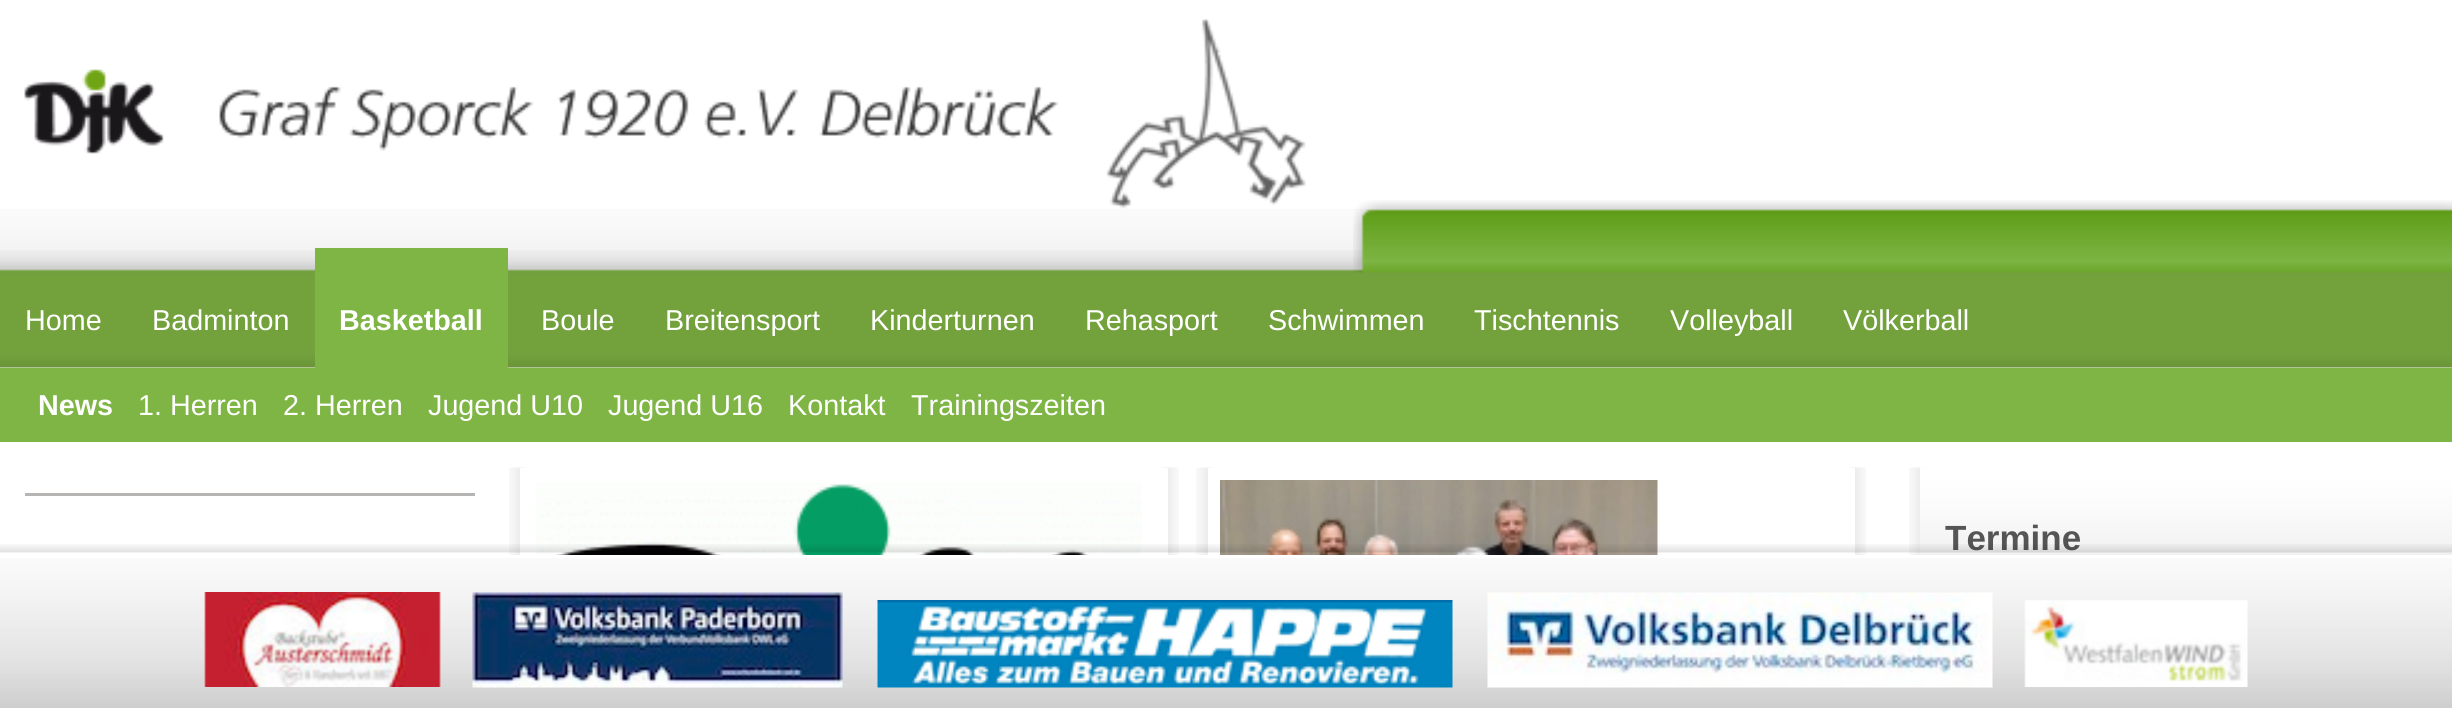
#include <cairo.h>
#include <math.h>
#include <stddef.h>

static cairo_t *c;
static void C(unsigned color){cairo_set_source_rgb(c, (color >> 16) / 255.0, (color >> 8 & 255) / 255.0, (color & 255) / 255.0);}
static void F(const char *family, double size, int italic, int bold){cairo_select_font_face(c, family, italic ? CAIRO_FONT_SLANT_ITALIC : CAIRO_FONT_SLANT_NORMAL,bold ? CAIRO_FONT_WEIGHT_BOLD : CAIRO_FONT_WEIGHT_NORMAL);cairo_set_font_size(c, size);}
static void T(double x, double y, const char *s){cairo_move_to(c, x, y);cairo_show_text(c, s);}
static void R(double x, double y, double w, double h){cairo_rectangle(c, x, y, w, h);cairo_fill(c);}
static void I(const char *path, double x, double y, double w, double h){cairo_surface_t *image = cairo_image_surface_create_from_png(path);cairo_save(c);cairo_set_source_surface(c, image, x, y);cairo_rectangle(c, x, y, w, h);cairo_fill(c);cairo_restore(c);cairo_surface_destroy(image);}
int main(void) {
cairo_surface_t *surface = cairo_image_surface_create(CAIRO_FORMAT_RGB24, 2452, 708);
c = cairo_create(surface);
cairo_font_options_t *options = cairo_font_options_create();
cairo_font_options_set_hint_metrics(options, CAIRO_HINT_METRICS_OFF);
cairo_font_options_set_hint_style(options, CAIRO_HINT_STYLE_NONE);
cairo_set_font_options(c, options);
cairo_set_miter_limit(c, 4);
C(0xffffff);
cairo_paint(c);
I("1.png",0,209,2452,159);
I("2.png",24,19,1282,190);
I("4.png",0,250,2452,118);
I("3.png",1353,200,1099,73);
F("Liberation Sans",28.75,0,0);
C(0xffffff);
T(25,330,"Home");
T(152,330,"Badminton");
C(0x7eb544);
R(315,248,193,120);
F("Liberation Sans",28.75,0,1);
C(0xffffff);
T(339,330,"Basketball");
F("Liberation Sans",28.75,0,0);
T(541,330,"Boule");
T(665,330,"Breitensport");
T(870,330,"Kinderturnen");
T(1085,330,"Rehasport");
T(1268,330,"Schwimmen");
T(1474,330,"Tischtennis");
T(1670,330,"Volleyball");
T(1843,330,"Völkerball");
C(0x7eb544);
R(0,368,2452,74);
F("Liberation Sans",28.75,0,1);
C(0xffffff);
T(38,415,"News");
F("Liberation Sans",28.75,0,0);
T(138,415,"1. Herren");
T(283,415,"2. Herren");
T(428,415,"Jugend U10");
T(608,415,"Jugend U16");
T(788,415,"Kontakt");
T(911,415,"Trainingszeiten");
C(0xb7b4b4);
R(25,493,450,3);
I("5.png",509,467,17,88);
I("6.png",1162,467,17,88);
C(0xffffff);
R(520,468,648,87);
I("7.png",536,483,606,72);
I("8.png",1196,467,17,88);
I("9.png",1849,467,17,88);
R(1208,468,647,87);
I("10.png",1220,480,438,75);
I("5.png",1909,467,17,88);
I("11.png",2449,467,3,1);
I("12.png",1920,467,532,88);
F("Liberation Sans",35,0,1);
C(0x555555);
T(1945,550,"Termine");
I("13.png",0,544,2452,9);
I("14.png",0,558,2452,150);
I("15.png",204,592,237,95);
I("16.png",472,592,371,96);
I("17.png",877,600,576,88);
I("18.png",1487,592,506,96);
I("19.png",2024,600,224,87);
cairo_surface_write_to_png(surface, "o.png");
cairo_font_options_destroy(options);
cairo_destroy(c);
cairo_surface_destroy(surface);
return 0;
}
